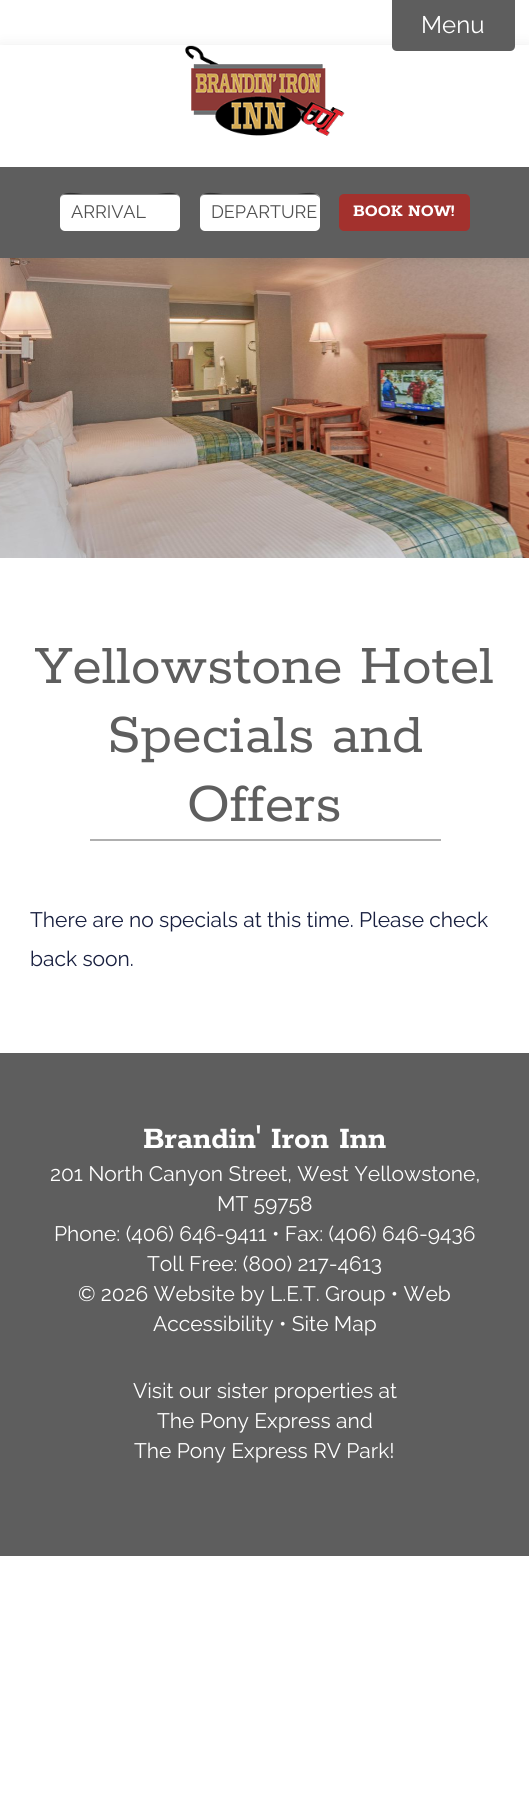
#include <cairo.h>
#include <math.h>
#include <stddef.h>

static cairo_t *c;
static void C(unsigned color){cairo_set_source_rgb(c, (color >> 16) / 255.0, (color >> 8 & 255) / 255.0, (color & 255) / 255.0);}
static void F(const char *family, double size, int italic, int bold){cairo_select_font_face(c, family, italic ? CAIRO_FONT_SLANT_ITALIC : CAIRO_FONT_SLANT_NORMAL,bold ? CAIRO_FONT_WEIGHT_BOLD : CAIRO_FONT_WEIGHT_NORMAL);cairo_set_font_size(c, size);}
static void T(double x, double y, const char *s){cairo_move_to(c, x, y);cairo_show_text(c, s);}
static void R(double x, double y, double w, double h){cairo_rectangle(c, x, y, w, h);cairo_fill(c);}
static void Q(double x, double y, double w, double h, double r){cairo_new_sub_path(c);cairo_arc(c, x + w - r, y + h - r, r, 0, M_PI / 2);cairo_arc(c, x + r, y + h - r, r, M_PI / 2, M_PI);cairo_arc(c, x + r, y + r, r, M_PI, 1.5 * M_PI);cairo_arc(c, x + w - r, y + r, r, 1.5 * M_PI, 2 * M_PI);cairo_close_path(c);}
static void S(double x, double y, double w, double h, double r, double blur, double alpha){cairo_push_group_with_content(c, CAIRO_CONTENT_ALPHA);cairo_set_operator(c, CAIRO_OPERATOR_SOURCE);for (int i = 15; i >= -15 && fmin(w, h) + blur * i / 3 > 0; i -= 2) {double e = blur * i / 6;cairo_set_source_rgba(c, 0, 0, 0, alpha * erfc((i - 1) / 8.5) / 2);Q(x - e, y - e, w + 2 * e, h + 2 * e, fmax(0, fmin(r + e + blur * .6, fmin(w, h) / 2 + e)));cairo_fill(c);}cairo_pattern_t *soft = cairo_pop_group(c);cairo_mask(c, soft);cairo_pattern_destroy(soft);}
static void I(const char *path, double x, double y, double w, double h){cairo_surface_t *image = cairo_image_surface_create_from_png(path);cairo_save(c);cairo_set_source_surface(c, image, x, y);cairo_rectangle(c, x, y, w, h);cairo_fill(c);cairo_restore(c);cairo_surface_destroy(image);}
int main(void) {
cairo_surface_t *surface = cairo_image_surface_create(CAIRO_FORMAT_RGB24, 529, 1800);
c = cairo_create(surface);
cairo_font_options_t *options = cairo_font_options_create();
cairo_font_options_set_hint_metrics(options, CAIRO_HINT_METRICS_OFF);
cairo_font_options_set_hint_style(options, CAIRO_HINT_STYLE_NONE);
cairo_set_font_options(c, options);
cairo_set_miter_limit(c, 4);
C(0xffffff);
cairo_paint(c);
I("2.png",0,258,529,300);
cairo_save(c);
cairo_set_fill_rule(c,CAIRO_FILL_RULE_EVEN_ODD);
cairo_new_path(c);
cairo_move_to(c,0,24);
cairo_line_to(c,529,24);
cairo_line_to(c,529,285);
cairo_line_to(c,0,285);
cairo_close_path(c);
cairo_move_to(c,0,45);
cairo_line_to(c,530,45);
cairo_line_to(c,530,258);
cairo_line_to(c,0,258);
cairo_close_path(c);
cairo_clip(c);
C(0x000000);
S(0,48,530,213,0,7.5,.1);
cairo_restore(c);
C(0x5e5e5e);
cairo_new_path(c);
cairo_move_to(c,392,0);
cairo_line_to(c,515,0);
cairo_line_to(c,515,46);
cairo_curve_to(c,515,49,513,51,510,51);
cairo_line_to(c,397,51);
cairo_curve_to(c,394,51,392,49,392,46);
cairo_close_path(c);
cairo_fill(c);
F("Raleway",24,0,0);
C(0xffffff);
T(421,33,"Menu");
I("1.png",185,45,160,91);
C(0x5e5e5e);
R(0,167,529,91);
C(0xffffff);
Q(60,194,120,37,5);
cairo_fill(c);
cairo_set_source_rgba(c,0,0,0,0.5);
cairo_new_path(c);
cairo_move_to(c,64,195);
cairo_line_to(c,176,195);
cairo_curve_to(c,178,195,180,197,180,200);
cairo_curve_to(c,180,189,161,194,157,194);
cairo_line_to(c,83,194);
cairo_curve_to(c,79,194,60,189,60,200);
cairo_curve_to(c,60,197,62,195,64,195);
cairo_close_path(c);
cairo_fill(c);
F("Raleway",18,0,0);
C(0x505050);
T(71,218,"ARRIVAL");
C(0xffffff);
Q(200,194,120,37,5);
cairo_fill(c);
cairo_set_source_rgba(c,0,0,0,0.5);
cairo_new_path(c);
cairo_move_to(c,204,195);
cairo_line_to(c,315,195);
cairo_curve_to(c,317,195,320,197,320,200);
cairo_curve_to(c,320,189,301,194,297,194);
cairo_line_to(c,223,194);
cairo_curve_to(c,219,194,200,189,200,200);
cairo_curve_to(c,200,197,202,195,204,195);
cairo_close_path(c);
cairo_fill(c);
C(0x505050);
T(211,218,"DEPARTURE");
C(0xa3312d);
Q(339,194,131,37,5);
cairo_fill(c);
F("Rokkitt",18,0,1);
C(0xffffff);
T(353,216,"BOOK NOW!");
F("Rokkitt",60,0,0);
C(0x5e5e5e);
T(35,683,"Yellowstone Hotel");
T(107,752,"Specials and");
T(187,821,"Offers");
C(0xafafaf);
R(90,839,351,2);
F("Raleway",21,0,0);
C(0x181f3f);
T(30,927,"There are no specials at this time. Please check");
T(30,966,"back soon.");
C(0x5e5e5e);
R(0,1053,529,503);
F("Rokkitt",33,0,1);
C(0xffffff);
T(143,1148,"Brandin' Iron Inn");
F("Raleway",21,0,0);
T(50,1181,"201 North Canyon Street, West Yellowstone,");
T(217,1211,"MT 59758");
T(54,1241,"Phone: (406) 646-9411 • Fax: (406) 646-9436");
T(147,1271,"Toll Free: (800) 217-4613");
T(78,1301,"© 2026 Website by L.E.T. Group • Web");
T(153,1331,"Accessibility • Site Map");
T(133,1398,"Visit our sister properties at");
T(157,1428,"The Pony Express and");
T(134,1458,"The Pony Express RV Park!");
cairo_surface_write_to_png(surface, "o.png");
cairo_font_options_destroy(options);
cairo_destroy(c);
cairo_surface_destroy(surface);
return 0;
}
